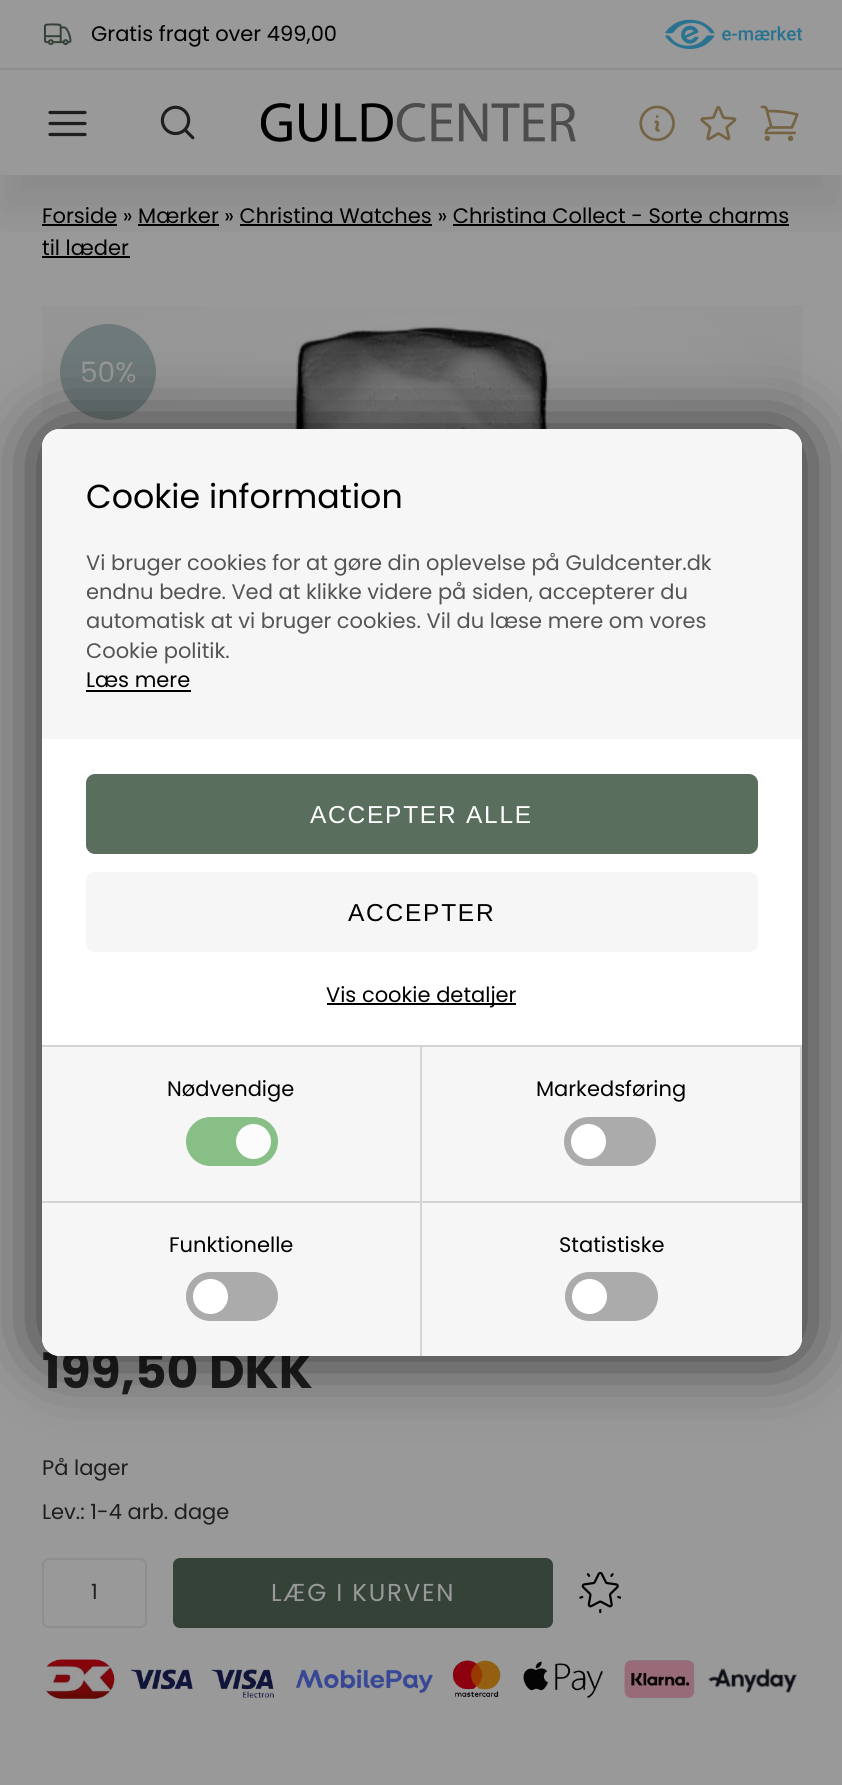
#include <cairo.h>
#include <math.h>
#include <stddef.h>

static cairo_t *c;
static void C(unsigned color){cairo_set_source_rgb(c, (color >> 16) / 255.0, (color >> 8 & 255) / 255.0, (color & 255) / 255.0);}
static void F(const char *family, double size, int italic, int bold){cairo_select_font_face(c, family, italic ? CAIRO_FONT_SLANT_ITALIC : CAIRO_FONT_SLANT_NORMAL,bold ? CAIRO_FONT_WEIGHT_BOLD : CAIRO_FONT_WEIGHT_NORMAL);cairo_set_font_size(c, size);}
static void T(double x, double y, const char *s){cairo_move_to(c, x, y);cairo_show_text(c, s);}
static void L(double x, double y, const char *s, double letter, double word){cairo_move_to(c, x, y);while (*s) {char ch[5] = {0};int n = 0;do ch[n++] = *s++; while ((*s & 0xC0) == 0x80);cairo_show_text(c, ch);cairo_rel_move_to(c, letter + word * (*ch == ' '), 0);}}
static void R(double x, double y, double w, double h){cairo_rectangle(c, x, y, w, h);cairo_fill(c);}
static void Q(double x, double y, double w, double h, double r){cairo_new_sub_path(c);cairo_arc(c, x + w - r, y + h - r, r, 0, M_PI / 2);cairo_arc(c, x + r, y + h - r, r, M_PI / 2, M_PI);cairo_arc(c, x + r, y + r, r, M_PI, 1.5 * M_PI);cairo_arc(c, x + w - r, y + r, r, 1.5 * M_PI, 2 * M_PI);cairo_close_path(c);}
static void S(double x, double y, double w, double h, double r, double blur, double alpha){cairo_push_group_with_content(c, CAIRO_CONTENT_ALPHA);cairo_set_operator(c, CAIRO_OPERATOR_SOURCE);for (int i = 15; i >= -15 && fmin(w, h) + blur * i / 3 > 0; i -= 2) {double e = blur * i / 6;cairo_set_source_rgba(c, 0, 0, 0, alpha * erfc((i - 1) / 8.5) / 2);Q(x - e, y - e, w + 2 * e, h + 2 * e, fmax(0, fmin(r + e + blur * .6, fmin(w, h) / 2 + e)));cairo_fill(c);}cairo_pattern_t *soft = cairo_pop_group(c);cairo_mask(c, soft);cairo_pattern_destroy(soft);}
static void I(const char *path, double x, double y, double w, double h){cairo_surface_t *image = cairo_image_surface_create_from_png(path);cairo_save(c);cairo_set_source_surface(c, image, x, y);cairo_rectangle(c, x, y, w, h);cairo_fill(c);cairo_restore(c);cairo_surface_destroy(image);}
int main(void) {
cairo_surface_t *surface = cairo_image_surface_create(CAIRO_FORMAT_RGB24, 842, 1785);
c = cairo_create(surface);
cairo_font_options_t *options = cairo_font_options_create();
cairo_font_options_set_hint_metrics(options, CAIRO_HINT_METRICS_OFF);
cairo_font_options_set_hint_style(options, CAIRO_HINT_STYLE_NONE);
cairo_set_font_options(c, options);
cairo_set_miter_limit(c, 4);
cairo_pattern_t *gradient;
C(0x999999);
cairo_paint(c);
C(0x8e8e8e);
R(0,68,842,2);
I("1.png",43,23,29,23);
F("Poppins",21,0,0);
C(0x000000);
T(91,41,"Gratis fragt over 499,00");
I("2.png",665,19,137,30);
R(42,224,75,2);
R(138,224,81,2);
R(240,224,192,2);
R(453,224,336,2);
R(42,256,88,2);
cairo_save(c);
cairo_rectangle(c,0,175,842,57);
cairo_clip(c);
C(0x000000);
S(0,105,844,105,0,26,.1);
cairo_restore(c);
cairo_new_path(c);
cairo_move_to(c,50,112.5);
cairo_line_to(c,85,112.5);
cairo_move_to(c,50,123.5);
cairo_line_to(c,85,123.5);
cairo_move_to(c,50,134.5);
cairo_line_to(c,85,134.5);
C(0x1e1e1e);
cairo_set_line_width(c,3.2);
cairo_set_line_cap(c,CAIRO_LINE_CAP_ROUND);
cairo_set_line_join(c,CAIRO_LINE_JOIN_ROUND);
cairo_stroke(c);
I("3.png",160,105,35,35);
I("4.png",261,103,315,39);
I("5.png",639,105,36,37);
I("6.png",700,105,37,36);
I("7.png",760,105,39,37);
C(0x000000);
T(42,223,"Forside » Mærker » Christina Watches » Christina Collect - Sorte charms");
T(42,255,"til læder");
I("8.png",287,324,264,105);
gradient = cairo_pattern_create_radial(422,686,0,422,686,537);
cairo_pattern_add_color_stop_rgba(gradient,.54,0,0,0,0);
cairo_pattern_add_color_stop_rgba(gradient,1,0,0,0,.03);
cairo_set_source(c,gradient);
cairo_pattern_destroy(gradient);
R(42,306,760,107);
C(0x6e797a);
cairo_arc(c,108,372,48,0,2 * M_PI);
cairo_fill(c);
F("Poppins",28,0,0);
C(0x999999);
T(80,382,"50%");
F("Poppins",49,0,1);
C(0x1e1e1e);
T(42,1388,"199,50 DKK");
F("Poppins",21,0,0);
T(42,1475,"På lager");
T(42,1519,"Lev.: 1-4 arb. dage");
Q(43,1559,103,68,6);
C(0x8e8e8e);
cairo_set_line_width(c,2);
cairo_set_line_cap(c,CAIRO_LINE_CAP_BUTT);
cairo_set_line_join(c,CAIRO_LINE_JOIN_MITER);
cairo_stroke(c);
C(0x1e1e1e);
T(91,1599,"1");
C(0x354238);
Q(173,1558,380,70,7);
cairo_fill(c);
F("Poppins",24.5,0,0);
C(0x999999);
L(271,1601,"LÆG I KURVEN",1.75,0);
I("9.png",579,1572,42,42);
I("10.png",46,1659,751,40);
C(0x000000);
S(42,429,760,927,18,35,.7);
C(0xffffff);
Q(42,429,760,927,18);
cairo_fill(c);
C(0xf6f6f6);
cairo_new_path(c);
cairo_move_to(c,60,429);
cairo_line_to(c,784,429);
cairo_curve_to(c,794,429,802,437,802,447);
cairo_line_to(c,802,550);
cairo_line_to(c,42,550);
cairo_line_to(c,42,447);
cairo_curve_to(c,42,437,50,429,60,429);
cairo_close_path(c);
cairo_fill(c);
F("Poppins",33.25,0,0);
C(0x000000);
T(86,508,"Cookie information");
C(0xf6f6f6);
R(42,550,760,189);
F("Poppins",21,0,0);
C(0x545454);
T(86,570,"Vi bruger cookies for at gøre din oplevelse på Guldcenter.dk");
T(86,599,"endnu bedre. Ved at klikke videre på siden, accepterer du");
T(86,628,"automatisk at vi bruger cookies. Vil du læse mere om vores");
T(86,658,"Cookie politik.");
C(0x000000);
T(86,687,"Læs mere");
R(86,690,105,2);
C(0x596e5d);
Q(86,774,672,80,9);
cairo_fill(c);
F("Liberation Sans",24.5,0,0);
C(0xffffff);
L(310,823,"ACCEPTER ALLE",1.75,0);
C(0xf6f6f6);
Q(86,872,672,80,9);
cairo_fill(c);
C(0x000000);
L(348,921,"ACCEPTER",1.75,0);
R(327,1003,189,2);
F("Poppins",21,0,0);
T(326,1002,"Vis cookie detaljer");
C(0xf6f6f6);
cairo_new_path(c);
cairo_move_to(c,42,1045);
cairo_line_to(c,802,1045);
cairo_line_to(c,802,1338);
cairo_curve_to(c,802,1348,794,1356,784,1356);
cairo_line_to(c,60,1356);
cairo_curve_to(c,50,1356,42,1348,42,1338);
cairo_close_path(c);
cairo_fill(c);
C(0xd4d4d4);
R(42,1045,760,2);
R(420,1047,2,155);
R(42,1201,380,2);
C(0x000000);
T(167,1096,"Nødvendige");
C(0x87bf87);
Q(186,1117,92,49,24.5);
cairo_fill(c);
C(0xfcfcfc);
cairo_arc(c,253.5,1141.5,17.5,0,2 * M_PI);
cairo_fill(c);
C(0xd4d4d4);
R(800,1047,2,155);
R(422,1201,380,2);
C(0x000000);
T(536,1096,"Markedsføring");
C(0xababab);
Q(564,1117,92,49,24.5);
cairo_fill(c);
C(0xffffff);
cairo_arc(c,588.5,1141.5,17.5,0,2 * M_PI);
cairo_fill(c);
C(0xd4d4d4);
R(420,1202,2,154);
C(0x000000);
T(169,1252,"Funktionelle");
C(0xababab);
Q(186,1272,92,49,24.5);
cairo_fill(c);
C(0xffffff);
cairo_arc(c,210.5,1296.5,17.5,0,2 * M_PI);
cairo_fill(c);
C(0x000000);
T(559,1252,"Statistiske");
C(0xababab);
Q(565,1272,93,49,24.5);
cairo_fill(c);
C(0xffffff);
cairo_arc(c,589.5,1296.5,17.5,0,2 * M_PI);
cairo_fill(c);
cairo_surface_write_to_png(surface, "o.png");
cairo_font_options_destroy(options);
cairo_destroy(c);
cairo_surface_destroy(surface);
return 0;
}
